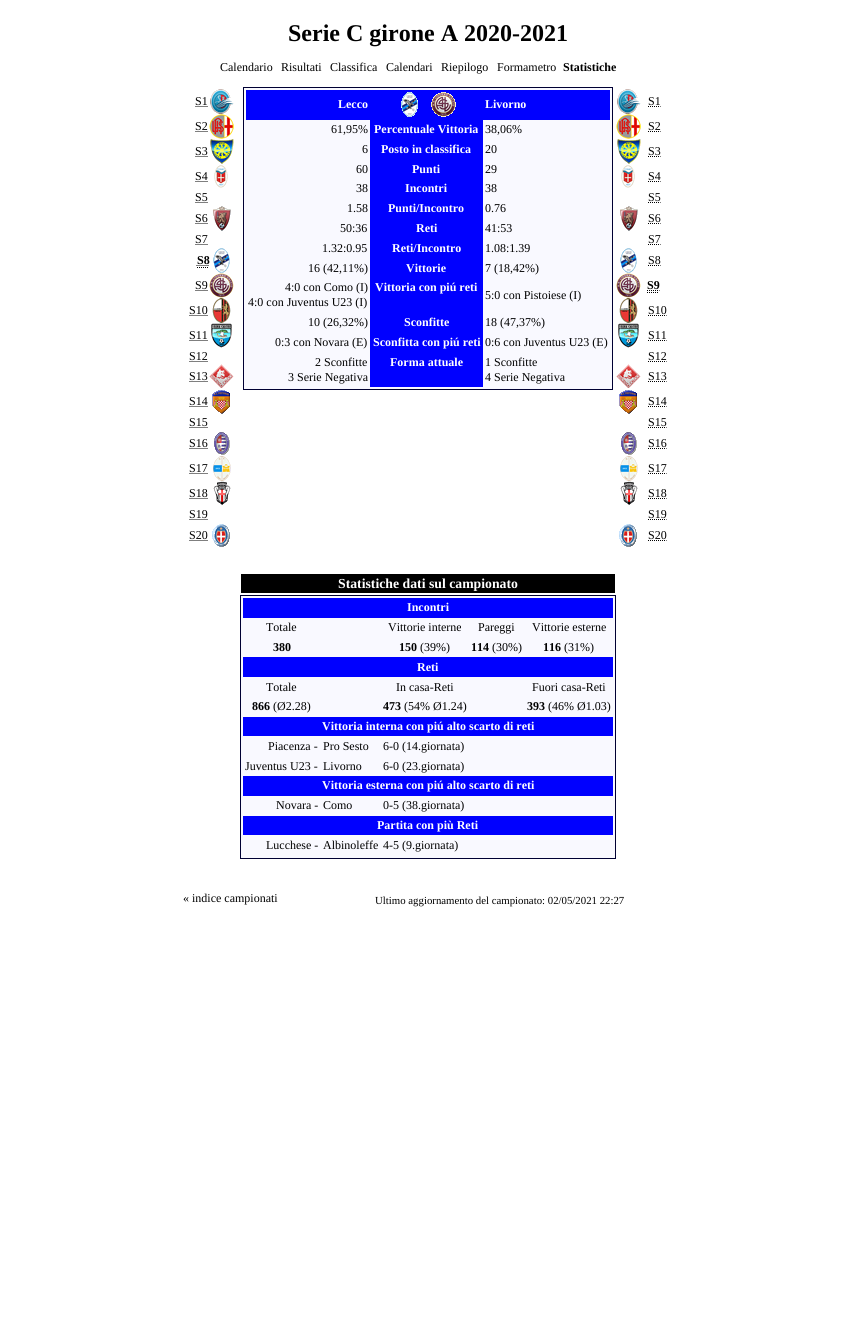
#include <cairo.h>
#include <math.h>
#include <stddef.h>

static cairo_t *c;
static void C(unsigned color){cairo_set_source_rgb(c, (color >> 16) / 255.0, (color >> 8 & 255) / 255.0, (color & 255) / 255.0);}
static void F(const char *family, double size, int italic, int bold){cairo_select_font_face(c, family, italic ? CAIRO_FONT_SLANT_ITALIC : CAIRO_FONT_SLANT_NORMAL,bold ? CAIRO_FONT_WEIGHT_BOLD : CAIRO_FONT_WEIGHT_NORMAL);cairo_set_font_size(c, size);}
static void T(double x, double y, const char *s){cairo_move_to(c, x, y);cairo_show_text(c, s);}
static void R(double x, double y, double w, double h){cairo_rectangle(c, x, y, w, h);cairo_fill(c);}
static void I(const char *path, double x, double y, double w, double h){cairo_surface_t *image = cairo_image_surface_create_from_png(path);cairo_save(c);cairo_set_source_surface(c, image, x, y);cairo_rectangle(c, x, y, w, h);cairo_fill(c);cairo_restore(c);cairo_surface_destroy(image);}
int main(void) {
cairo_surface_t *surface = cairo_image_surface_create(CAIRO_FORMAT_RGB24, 856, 1338);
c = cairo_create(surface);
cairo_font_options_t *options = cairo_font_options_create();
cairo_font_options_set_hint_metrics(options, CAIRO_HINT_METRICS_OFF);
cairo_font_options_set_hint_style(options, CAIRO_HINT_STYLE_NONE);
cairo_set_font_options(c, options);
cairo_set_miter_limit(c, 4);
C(0xffffff);
cairo_paint(c);
F("Liberation Serif",24,0,1);
C(0x000000);
T(288,41,"Serie C girone A 2020-2021");
F("Liberation Serif",12,0,0);
T(220,71,"Calendario");
T(281,71,"Risultati");
T(330,71,"Classifica");
T(386,71,"Calendari");
T(441,71,"Riepilogo");
T(497,71,"Formametro");
F("Liberation Serif",12,0,1);
T(563,71,"Statistiche");
F("Liberation Serif",12,0,0);
T(195,105,"S1");
cairo_new_path(c);
cairo_move_to(c,195.5,106.5);
cairo_line_to(c,208,106.5);
cairo_set_line_width(c,1);
cairo_set_dash(c,(double[]){1,1},2,0);
cairo_stroke(c);
I("1.png",210,89,24,25);
T(195,130,"S2");
cairo_new_path(c);
cairo_move_to(c,195.5,131.5);
cairo_line_to(c,208,131.5);
cairo_stroke(c);
I("2.png",209,114,25,25);
T(195,155,"S3");
cairo_new_path(c);
cairo_move_to(c,195.5,156.5);
cairo_line_to(c,208,156.5);
cairo_stroke(c);
I("3.png",210,139,24,25);
T(195,180,"S4");
cairo_new_path(c);
cairo_move_to(c,195.5,181.5);
cairo_line_to(c,208,181.5);
cairo_stroke(c);
I("4.png",214,165,14,23);
T(195,201,"S5");
cairo_new_path(c);
cairo_move_to(c,195.5,202.5);
cairo_line_to(c,208,202.5);
cairo_stroke(c);
T(195,222,"S6");
cairo_new_path(c);
cairo_move_to(c,195.5,223.5);
cairo_line_to(c,208,223.5);
cairo_stroke(c);
I("5.png",213,206,18,25);
T(195,243,"S7");
cairo_new_path(c);
cairo_move_to(c,195.5,244.5);
cairo_line_to(c,208,244.5);
cairo_stroke(c);
F("Liberation Serif",12,0,1);
T(197,264,"S8");
cairo_new_path(c);
cairo_move_to(c,197,267.5);
cairo_line_to(c,209,267.5);
cairo_move_to(c,196.5,265.5);
cairo_line_to(c,209,265.5);
cairo_stroke(c);
I("6.png",213,248,17,25);
F("Liberation Serif",12,0,0);
T(195,289,"S9");
cairo_new_path(c);
cairo_move_to(c,195.5,290.5);
cairo_line_to(c,208,290.5);
cairo_stroke(c);
I("7.png",209,273,25,25);
T(189,314,"S10");
cairo_new_path(c);
cairo_move_to(c,189.5,315.5);
cairo_line_to(c,208,315.5);
cairo_stroke(c);
I("8.png",212,298,19,25);
T(189,339,"S11");
cairo_new_path(c);
cairo_move_to(c,189.5,340.5);
cairo_line_to(c,208,340.5);
cairo_stroke(c);
I("9.png",211,323,21,25);
T(189,360,"S12");
cairo_new_path(c);
cairo_move_to(c,189.5,361.5);
cairo_line_to(c,208,361.5);
cairo_stroke(c);
T(189,380,"S13");
cairo_new_path(c);
cairo_move_to(c,189.5,381.5);
cairo_line_to(c,208,381.5);
cairo_stroke(c);
I("10.png",209,364,25,24);
T(189,405,"S14");
cairo_new_path(c);
cairo_move_to(c,189.5,406.5);
cairo_line_to(c,208,406.5);
cairo_stroke(c);
I("11.png",212,390,18,24);
T(189,426,"S15");
cairo_new_path(c);
cairo_move_to(c,189.5,427.5);
cairo_line_to(c,208,427.5);
cairo_stroke(c);
T(189,447,"S16");
cairo_new_path(c);
cairo_move_to(c,189.5,448.5);
cairo_line_to(c,208,448.5);
cairo_stroke(c);
I("12.png",214,432,16,23);
T(189,472,"S17");
cairo_new_path(c);
cairo_move_to(c,189.5,473.5);
cairo_line_to(c,208,473.5);
cairo_stroke(c);
I("13.png",213,456,18,25);
T(189,497,"S18");
cairo_new_path(c);
cairo_move_to(c,189.5,498.5);
cairo_line_to(c,208,498.5);
cairo_stroke(c);
I("14.png",213,481,18,24);
T(189,518,"S19");
cairo_new_path(c);
cairo_move_to(c,189.5,519.5);
cairo_line_to(c,208,519.5);
cairo_stroke(c);
T(189,539,"S20");
cairo_new_path(c);
cairo_move_to(c,189.5,540.5);
cairo_line_to(c,208,540.5);
cairo_stroke(c);
I("15.png",212,524,18,23);
C(0xf9f9ff);
cairo_rectangle(c,243.5,87.5,369,302);
cairo_fill_preserve(c);
C(0x000033);
cairo_set_dash(c,NULL,0,0);
cairo_stroke(c);
C(0x0000ff);
R(246,90,364,30);
F("Liberation Serif",12,0,1);
C(0xffffff);
T(338,108,"Lecco");
I("16.png",401,92,17,25);
I("17.png",431,92,25,25);
T(485,108,"Livorno");
F("Liberation Serif",12,0,0);
C(0x000000);
T(331,133,"61,95%");
C(0x0000ff);
R(370,120,113,267);
F("Liberation Serif",12,0,1);
C(0xffffff);
T(374,133,"Percentuale Vittoria");
F("Liberation Serif",12,0,0);
C(0x000000);
T(485,133,"38,06%");
T(362,153,"6");
F("Liberation Serif",12,0,1);
C(0xffffff);
T(381,153,"Posto in classifica");
F("Liberation Serif",12,0,0);
C(0x000000);
T(485,153,"20");
T(356,173,"60");
F("Liberation Serif",12,0,1);
C(0xffffff);
T(412,173,"Punti");
F("Liberation Serif",12,0,0);
C(0x000000);
T(485,173,"29");
T(356,192,"38");
F("Liberation Serif",12,0,1);
C(0xffffff);
T(405,192,"Incontri");
F("Liberation Serif",12,0,0);
C(0x000000);
T(485,192,"38");
T(347,212,"1.58");
F("Liberation Serif",12,0,1);
C(0xffffff);
T(388,212,"Punti/Incontro");
F("Liberation Serif",12,0,0);
C(0x000000);
T(485,212,"0.76");
T(340,232,"50:36");
F("Liberation Serif",12,0,1);
C(0xffffff);
T(416,232,"Reti");
F("Liberation Serif",12,0,0);
C(0x000000);
T(485,232,"41:53");
T(322,252,"1.32:0.95");
F("Liberation Serif",12,0,1);
C(0xffffff);
T(392,252,"Reti/Incontro");
F("Liberation Serif",12,0,0);
C(0x000000);
T(485,252,"1.08:1.39");
T(308,272,"16 (42,11%)");
F("Liberation Serif",12,0,1);
C(0xffffff);
T(406,272,"Vittorie");
F("Liberation Serif",12,0,0);
C(0x000000);
T(485,272,"7 (18,42%)");
T(285,291,"4:0 con Como (I)");
T(248,306,"4:0 con Juventus U23 (I)");
F("Liberation Serif",12,0,1);
C(0xffffff);
T(375,291,"Vittoria con piú reti");
F("Liberation Serif",12,0,0);
C(0x000000);
T(485,299,"5:0 con Pistoiese (I)");
T(308,326,"10 (26,32%)");
F("Liberation Serif",12,0,1);
C(0xffffff);
T(404,326,"Sconfitte");
F("Liberation Serif",12,0,0);
C(0x000000);
T(485,326,"18 (47,37%)");
T(275,346,"0:3 con Novara (E)");
F("Liberation Serif",12,0,1);
C(0xffffff);
T(373,346,"Sconfitta con piú reti");
F("Liberation Serif",12,0,0);
C(0x000000);
T(485,346,"0:6 con Juventus U23 (E)");
T(315,366,"2 Sconfitte");
T(288,381,"3 Serie Negativa");
F("Liberation Serif",12,0,1);
C(0xffffff);
T(390,366,"Forma attuale");
F("Liberation Serif",12,0,0);
C(0x000000);
T(485,366,"1 Sconfitte");
T(485,381,"4 Serie Negativa");
I("1.png",617,89,24,25);
T(648,105,"S1");
cairo_new_path(c);
cairo_move_to(c,648,106.5);
cairo_line_to(c,660.5,106.5);
cairo_set_dash(c,(double[]){1,1},2,0);
cairo_stroke(c);
I("2.png",616,114,25,25);
T(648,130,"S2");
cairo_new_path(c);
cairo_move_to(c,648,131.5);
cairo_line_to(c,660.5,131.5);
cairo_stroke(c);
I("3.png",617,139,24,25);
T(648,155,"S3");
cairo_new_path(c);
cairo_move_to(c,648,156.5);
cairo_line_to(c,660.5,156.5);
cairo_stroke(c);
I("4.png",621,165,14,23);
T(648,180,"S4");
cairo_new_path(c);
cairo_move_to(c,648,181.5);
cairo_line_to(c,660.5,181.5);
cairo_stroke(c);
T(648,201,"S5");
cairo_new_path(c);
cairo_move_to(c,648,202.5);
cairo_line_to(c,660.5,202.5);
cairo_stroke(c);
I("5.png",620,206,18,25);
T(648,222,"S6");
cairo_new_path(c);
cairo_move_to(c,648,223.5);
cairo_line_to(c,660.5,223.5);
cairo_stroke(c);
T(648,243,"S7");
cairo_new_path(c);
cairo_move_to(c,648,244.5);
cairo_line_to(c,660.5,244.5);
cairo_stroke(c);
I("6.png",620,248,17,25);
T(648,264,"S8");
cairo_new_path(c);
cairo_move_to(c,648,265.5);
cairo_line_to(c,660.5,265.5);
cairo_stroke(c);
I("7.png",616,273,25,25);
F("Liberation Serif",12,0,1);
T(647,289,"S9");
cairo_new_path(c);
cairo_move_to(c,647,292.5);
cairo_line_to(c,659,292.5);
cairo_move_to(c,647,290.5);
cairo_line_to(c,659.5,290.5);
cairo_stroke(c);
I("8.png",619,298,19,25);
F("Liberation Serif",12,0,0);
T(648,314,"S10");
cairo_new_path(c);
cairo_move_to(c,648,315.5);
cairo_line_to(c,666.5,315.5);
cairo_stroke(c);
I("9.png",618,323,21,25);
T(648,339,"S11");
cairo_new_path(c);
cairo_move_to(c,648,340.5);
cairo_line_to(c,666.5,340.5);
cairo_stroke(c);
T(648,360,"S12");
cairo_new_path(c);
cairo_move_to(c,648,361.5);
cairo_line_to(c,666.5,361.5);
cairo_stroke(c);
I("10.png",616,364,25,24);
T(648,380,"S13");
cairo_new_path(c);
cairo_move_to(c,648,381.5);
cairo_line_to(c,666.5,381.5);
cairo_stroke(c);
I("11.png",619,390,18,24);
T(648,405,"S14");
cairo_new_path(c);
cairo_move_to(c,648,406.5);
cairo_line_to(c,666.5,406.5);
cairo_stroke(c);
T(648,426,"S15");
cairo_new_path(c);
cairo_move_to(c,648,427.5);
cairo_line_to(c,666.5,427.5);
cairo_stroke(c);
I("12.png",621,432,16,23);
T(648,447,"S16");
cairo_new_path(c);
cairo_move_to(c,648,448.5);
cairo_line_to(c,666.5,448.5);
cairo_stroke(c);
I("13.png",620,456,18,25);
T(648,472,"S17");
cairo_new_path(c);
cairo_move_to(c,648,473.5);
cairo_line_to(c,666.5,473.5);
cairo_stroke(c);
I("14.png",620,481,18,24);
T(648,497,"S18");
cairo_new_path(c);
cairo_move_to(c,648,498.5);
cairo_line_to(c,666.5,498.5);
cairo_stroke(c);
T(648,518,"S19");
cairo_new_path(c);
cairo_move_to(c,648,519.5);
cairo_line_to(c,666.5,519.5);
cairo_stroke(c);
I("15.png",619,524,18,23);
T(648,539,"S20");
cairo_new_path(c);
cairo_move_to(c,648,540.5);
cairo_line_to(c,666.5,540.5);
cairo_stroke(c);
R(241,574,374,19);
F("Liberation Serif",13.75,0,1);
C(0xffffff);
T(338,588,"Statistiche dati sul campionato");
C(0xf9f9ff);
cairo_rectangle(c,240.5,595.5,375,263);
cairo_fill_preserve(c);
C(0x000033);
cairo_set_dash(c,NULL,0,0);
cairo_stroke(c);
C(0x0000ff);
R(243,598,370,20);
F("Liberation Serif",12,0,1);
C(0xffffff);
T(407,611,"Incontri");
F("Liberation Serif",12,0,0);
C(0x000000);
T(266,631,"Totale");
T(388,631,"Vittorie interne");
T(478,631,"Pareggi");
T(532,631,"Vittorie esterne");
F("Liberation Serif",12,0,1);
T(273,651,"380");
T(399,651,"150");
F("Liberation Serif",12,0,0);
T(420,651,"(39%)");
F("Liberation Serif",12,0,1);
T(471,651,"114");
F("Liberation Serif",12,0,0);
T(492,651,"(30%)");
F("Liberation Serif",12,0,1);
T(543,651,"116");
F("Liberation Serif",12,0,0);
T(564,651,"(31%)");
C(0x0000ff);
R(243,657,370,20);
F("Liberation Serif",12,0,1);
C(0xffffff);
T(417,671,"Reti");
F("Liberation Serif",12,0,0);
C(0x000000);
T(266,691,"Totale");
T(396,691,"In casa-Reti");
T(532,691,"Fuori casa-Reti");
F("Liberation Serif",12,0,1);
T(252,710,"866");
F("Liberation Serif",12,0,0);
T(273,710,"(Ø2.28)");
F("Liberation Serif",12,0,1);
T(383,710,"473");
F("Liberation Serif",12,0,0);
T(404,710,"(54% Ø1.24)");
F("Liberation Serif",12,0,1);
T(527,710,"393");
F("Liberation Serif",12,0,0);
T(548,710,"(46% Ø1.03)");
C(0x0000ff);
R(243,717,370,19);
F("Liberation Serif",12,0,1);
C(0xffffff);
T(322,730,"Vittoria interna con piú alto scarto di reti");
F("Liberation Serif",12,0,0);
C(0x000000);
T(268,750,"Piacenza -");
T(323,750,"Pro Sesto");
T(383,750,"6-0 (14.giornata)");
T(245,770,"Juventus U23 -");
T(323,770,"Livorno");
T(383,770,"6-0 (23.giornata)");
C(0x0000ff);
R(243,776,370,20);
F("Liberation Serif",12,0,1);
C(0xffffff);
T(322,789,"Vittoria esterna con piú alto scarto di reti");
F("Liberation Serif",12,0,0);
C(0x000000);
T(276,809,"Novara -");
T(323,809,"Como");
T(383,809,"0-5 (38.giornata)");
C(0x0000ff);
R(243,816,370,19);
F("Liberation Serif",12,0,1);
C(0xffffff);
T(377,829,"Partita con più Reti");
F("Liberation Serif",12,0,0);
C(0x000000);
T(266,849,"Lucchese -");
T(323,849,"Albinoleffe");
T(383,849,"4-5 (9.giornata)");
T(183,902,"« indice campionati");
F("Liberation Serif",10.8,0,0);
T(375,904,"Ultimo aggiornamento del campionato: 02/05/2021 22:27");
cairo_surface_write_to_png(surface, "o.png");
cairo_font_options_destroy(options);
cairo_destroy(c);
cairo_surface_destroy(surface);
return 0;
}
